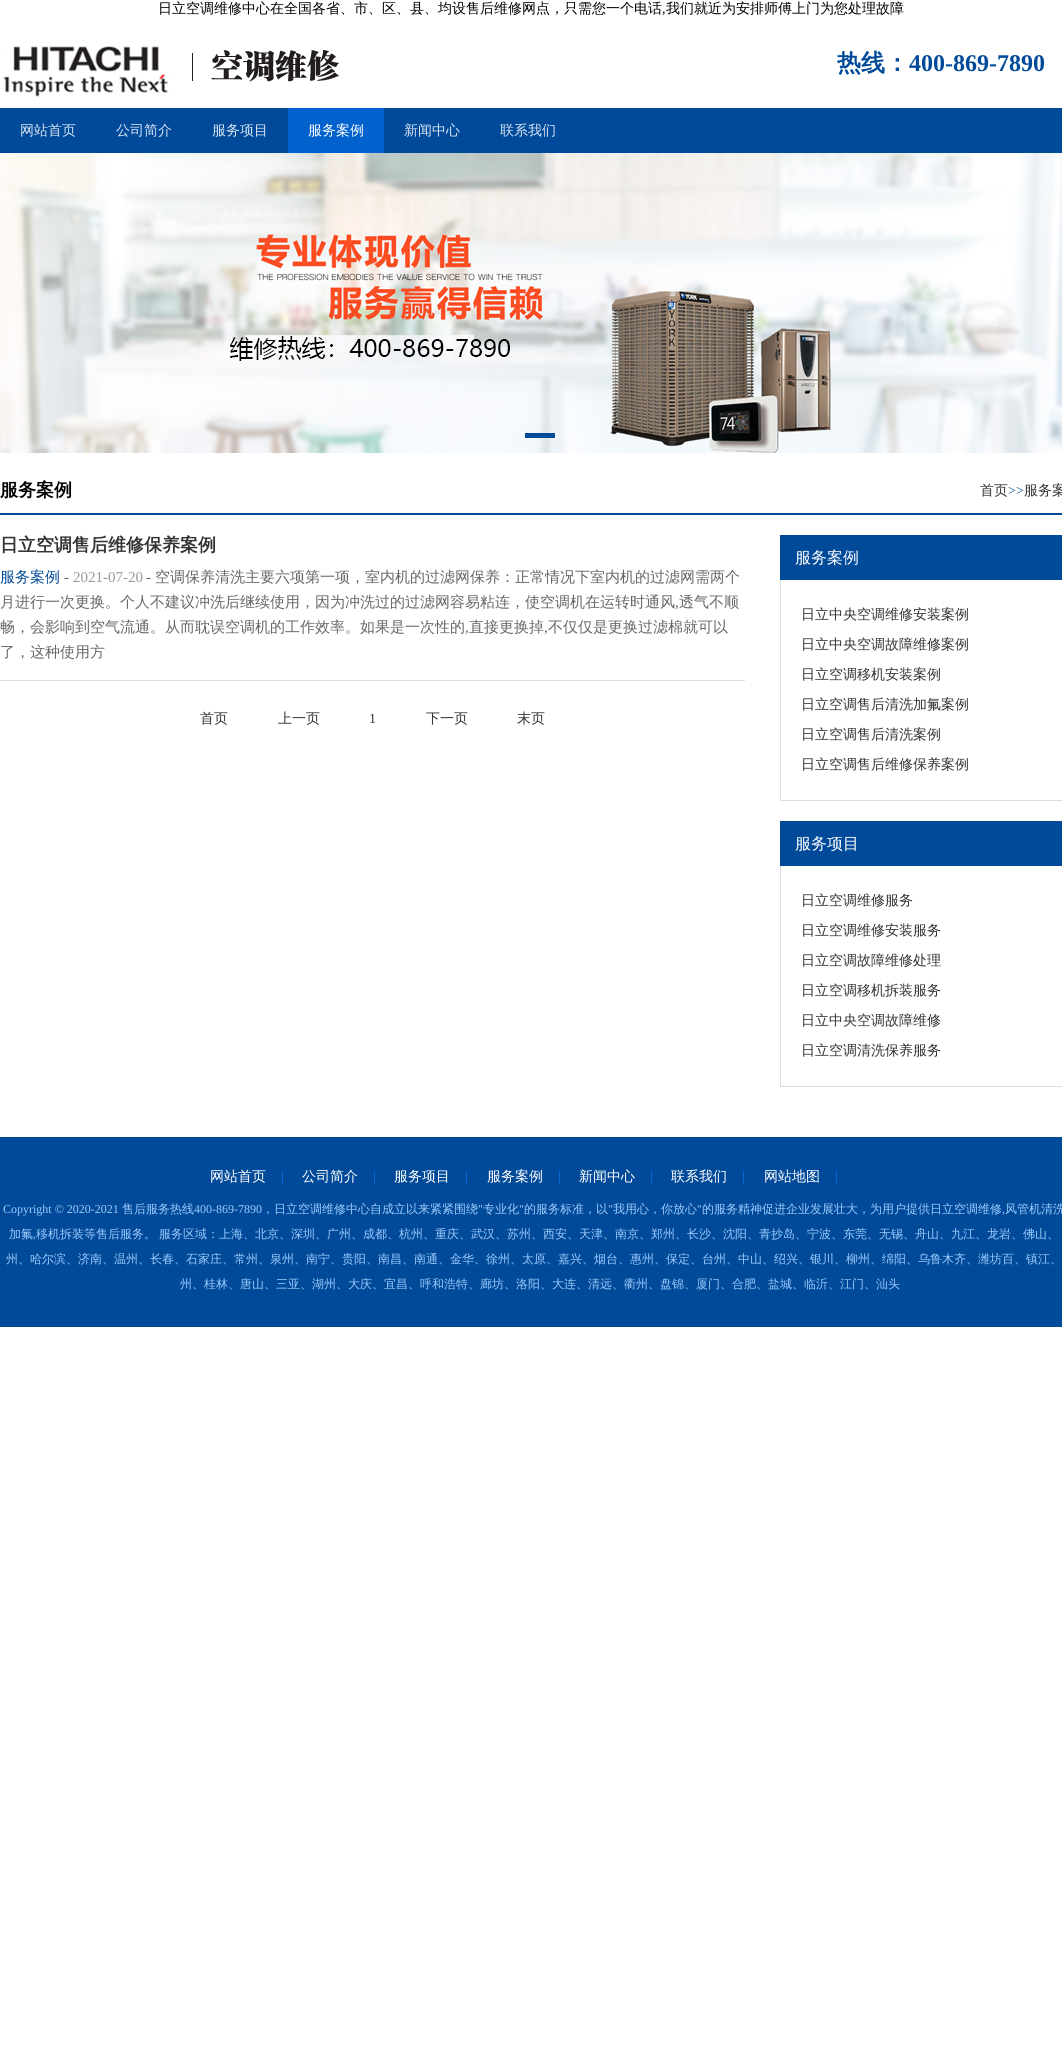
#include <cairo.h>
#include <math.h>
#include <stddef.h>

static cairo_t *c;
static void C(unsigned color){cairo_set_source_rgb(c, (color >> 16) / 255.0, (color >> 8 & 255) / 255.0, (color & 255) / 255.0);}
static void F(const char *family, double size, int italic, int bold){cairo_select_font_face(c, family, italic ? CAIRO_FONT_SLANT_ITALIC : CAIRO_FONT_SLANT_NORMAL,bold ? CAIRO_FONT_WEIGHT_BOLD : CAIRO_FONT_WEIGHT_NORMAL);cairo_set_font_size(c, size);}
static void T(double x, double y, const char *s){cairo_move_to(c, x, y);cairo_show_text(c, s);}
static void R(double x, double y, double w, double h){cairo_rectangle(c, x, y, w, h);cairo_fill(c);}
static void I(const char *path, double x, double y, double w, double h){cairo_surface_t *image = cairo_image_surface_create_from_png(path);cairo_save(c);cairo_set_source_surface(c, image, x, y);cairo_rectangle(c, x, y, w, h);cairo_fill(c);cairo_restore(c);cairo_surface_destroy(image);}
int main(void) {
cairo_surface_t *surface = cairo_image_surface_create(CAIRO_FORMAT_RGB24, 1062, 2071);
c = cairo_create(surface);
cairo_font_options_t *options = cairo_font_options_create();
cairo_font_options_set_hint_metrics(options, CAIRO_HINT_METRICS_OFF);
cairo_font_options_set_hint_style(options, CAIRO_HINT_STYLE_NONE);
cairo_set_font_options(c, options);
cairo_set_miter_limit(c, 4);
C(0xffffff);
cairo_paint(c);
F("WenQuanYi Zen Hei Medium",14,0,0);
C(0x000000);
T(158,13,"日立空调维修中心在全国各省、市、区、县、均设售后维修网点，只需您一个电话");
F("Liberation Serif",14,0,0);
T(662,13,",");
F("WenQuanYi Zen Hei Medium",14,0,0);
T(666,13,"我们就近为安排师傅上门为您处理故障");
I("1.png",3,46,336,51);
F("WenQuanYi Zen Hei",24,0,1);
C(0x014a99);
T(837,71,"热线：");
F("Liberation Serif",24,0,1);
T(909,71,"400-869-7890");
R(0,108,1062,45);
F("WenQuanYi Zen Hei Medium",14,0,0);
C(0xd7e4f4);
T(20,135,"网站首页");
T(116,135,"公司简介");
T(212,135,"服务项目");
C(0x0162cd);
R(288,108,96,45);
C(0xffffff);
T(308,135,"服务案例");
C(0xd7e4f4);
T(404,135,"新闻中心");
T(500,135,"联系我们");
I("2.png",0,153,1062,300);
C(0x014a99);
R(525,433,30,5);
R(0,513,1062,2);
F("WenQuanYi Zen Hei",18,0,1);
C(0x000000);
T(0,496,"服务案例");
F("WenQuanYi Zen Hei Medium",14,0,0);
C(0x333333);
T(980,495,"首页");
F("Liberation Serif",14,0,0);
C(0x014a99);
T(1008,495,">>");
F("WenQuanYi Zen Hei Medium",14,0,0);
C(0x333333);
T(1024,495,"服务案");
C(0xdddddd);
R(0,680,745,1);
F("WenQuanYi Zen Hei",18,0,1);
C(0x333333);
T(0,551,"日立空调售后维修保养案例");
F("WenQuanYi Zen Hei Medium",15,0,0);
C(0x014a99);
T(0,582,"服务案例");
F("Liberation Serif",15,0,0);
C(0x666666);
T(64,582,"-");
C(0x999999);
T(73,582,"2021-07-20");
C(0x666666);
T(146,582,"-");
F("WenQuanYi Zen Hei Medium",15,0,0);
T(155,582,"空调保养清洗主要六项第一项，室内机的过滤网保养：正常情况下室内机的过滤网需两个");
T(0,607,"月进行一次更换。个人不建议冲洗后继续使用，因为冲洗过的过滤网容易粘连，使空调机在运转时通风");
F("Liberation Serif",15,0,0);
T(675,607,",");
F("WenQuanYi Zen Hei Medium",15,0,0);
T(679,607,"透气不顺");
T(0,632,"畅，会影响到空气流通。从而耽误空调机的工作效率。如果是一次性的");
F("Liberation Serif",15,0,0);
T(465,632,",");
F("WenQuanYi Zen Hei Medium",15,0,0);
T(469,632,"直接更换掉");
F("Liberation Serif",15,0,0);
T(544,632,",");
F("WenQuanYi Zen Hei Medium",15,0,0);
T(548,632,"不仅仅是更换过滤棉就可以");
T(0,657,"了，这种使用方");
F("WenQuanYi Zen Hei Medium",14,0,0);
C(0x333333);
T(200,723,"首页");
T(278,723,"上一页");
F("Liberation Serif",14,0,0);
T(369,723,"1");
F("WenQuanYi Zen Hei Medium",14,0,0);
T(426,723,"下一页");
T(517,723,"末页");
C(0x014a99);
R(780,535,282,45);
F("WenQuanYi Zen Hei Medium",16,0,0);
C(0xffffff);
T(795,563,"服务案例");
C(0xdddddd);
R(780,800,282,1);
R(780,580,1,221);
F("WenQuanYi Zen Hei Medium",14,0,0);
C(0x333333);
T(801,619,"日立中央空调维修安装案例");
T(801,649,"日立中央空调故障维修案例");
T(801,679,"日立空调移机安装案例");
T(801,709,"日立空调售后清洗加氟案例");
T(801,739,"日立空调售后清洗案例");
T(801,769,"日立空调售后维修保养案例");
C(0x014a99);
R(780,821,282,45);
F("WenQuanYi Zen Hei Medium",16,0,0);
C(0xffffff);
T(795,849,"服务项目");
C(0xdddddd);
R(780,1086,282,1);
R(780,866,1,221);
F("WenQuanYi Zen Hei Medium",14,0,0);
C(0x333333);
T(801,905,"日立空调维修服务");
T(801,935,"日立空调维修安装服务");
T(801,965,"日立空调故障维修处理");
T(801,995,"日立空调移机拆装服务");
T(801,1025,"日立中央空调故障维修");
T(801,1055,"日立空调清洗保养服务");
C(0x014a99);
R(0,1137,1062,190);
C(0xffffff);
T(210,1181,"网站首页");
F("Liberation Serif",14,0,0);
C(0x0171eb);
T(281,1181,"|");
F("WenQuanYi Zen Hei Medium",14,0,0);
C(0xffffff);
T(302,1181,"公司简介");
F("Liberation Serif",14,0,0);
C(0x0171eb);
T(373,1181,"|");
F("WenQuanYi Zen Hei Medium",14,0,0);
C(0xffffff);
T(394,1181,"服务项目");
F("Liberation Serif",14,0,0);
C(0x0171eb);
T(465,1181,"|");
F("WenQuanYi Zen Hei Medium",14,0,0);
C(0xffffff);
T(487,1181,"服务案例");
F("Liberation Serif",14,0,0);
C(0x0171eb);
T(558,1181,"|");
F("WenQuanYi Zen Hei Medium",14,0,0);
C(0xffffff);
T(579,1181,"新闻中心");
F("Liberation Serif",14,0,0);
C(0x0171eb);
T(650,1181,"|");
F("WenQuanYi Zen Hei Medium",14,0,0);
C(0xffffff);
T(671,1181,"联系我们");
F("Liberation Serif",14,0,0);
C(0x0171eb);
T(742,1181,"|");
F("WenQuanYi Zen Hei Medium",14,0,0);
C(0xffffff);
T(764,1181,"网站地图");
F("Liberation Serif",14,0,0);
C(0x0171eb);
T(835,1181,"|");
F("Liberation Serif",12,0,0);
C(0x9ccbfe);
T(3,1213,"Copyright © 2020-2021");
F("WenQuanYi Zen Hei Medium",12,0,0);
T(122,1213,"售后服务热线");
F("Liberation Serif",12,0,0);
T(194,1213,"400-869-7890");
F("WenQuanYi Zen Hei Medium",12,0,0);
T(262,1213,"，日立空调维修中心自成立以来紧紧围绕");
F("Liberation Serif",12,0,0);
T(478,1213,"\"");
F("WenQuanYi Zen Hei Medium",12,0,0);
T(483,1213,"专业化");
F("Liberation Serif",12,0,0);
T(519,1213,"\"");
F("WenQuanYi Zen Hei Medium",12,0,0);
T(524,1213,"的服务标准，以");
F("Liberation Serif",12,0,0);
T(608,1213,"\"");
F("WenQuanYi Zen Hei Medium",12,0,0);
T(613,1213,"我用心，你放心");
F("Liberation Serif",12,0,0);
T(697,1213,"\"");
F("WenQuanYi Zen Hei Medium",12,0,0);
T(702,1213,"的服务精神促进企业发展壮大，为用户提供日立空调维修");
T(1005,1213,"风管机清洗");
F("Liberation Serif",12,0,0);
T(1002,1213,",");
F("WenQuanYi Zen Hei Medium",12,0,0);
T(9,1238,"加氟");
F("Liberation Serif",12,0,0);
T(33,1238,",");
F("WenQuanYi Zen Hei Medium",12,0,0);
T(36,1238,"移机拆装等售后服务。");
T(159,1238,"服务区域：上海、北京、深圳、广州、成都、杭州、重庆、武汉、苏州、西安、天津、南京、郑州、长沙、沈阳、青抄岛、宁波、东莞、无锡、舟山、九江、龙岩、佛山、");
T(6,1263,"州、哈尔滨、济南、温州、长春、石家庄、常州、泉州、南宁、贵阳、南昌、南通、金华、徐州、太原、嘉兴、烟台、惠州、保定、台州、中山、绍兴、银川、柳州、绵阳、乌鲁木齐、潍坊百、镇江、");
T(180,1288,"州、桂林、唐山、三亚、湖州、大庆、宜昌、呼和浩特、廊坊、洛阳、大连、清远、衢州、盘锦、厦门、合肥、盐城、临沂、江门、汕头");
cairo_surface_write_to_png(surface, "o.png");
cairo_font_options_destroy(options);
cairo_destroy(c);
cairo_surface_destroy(surface);
return 0;
}
